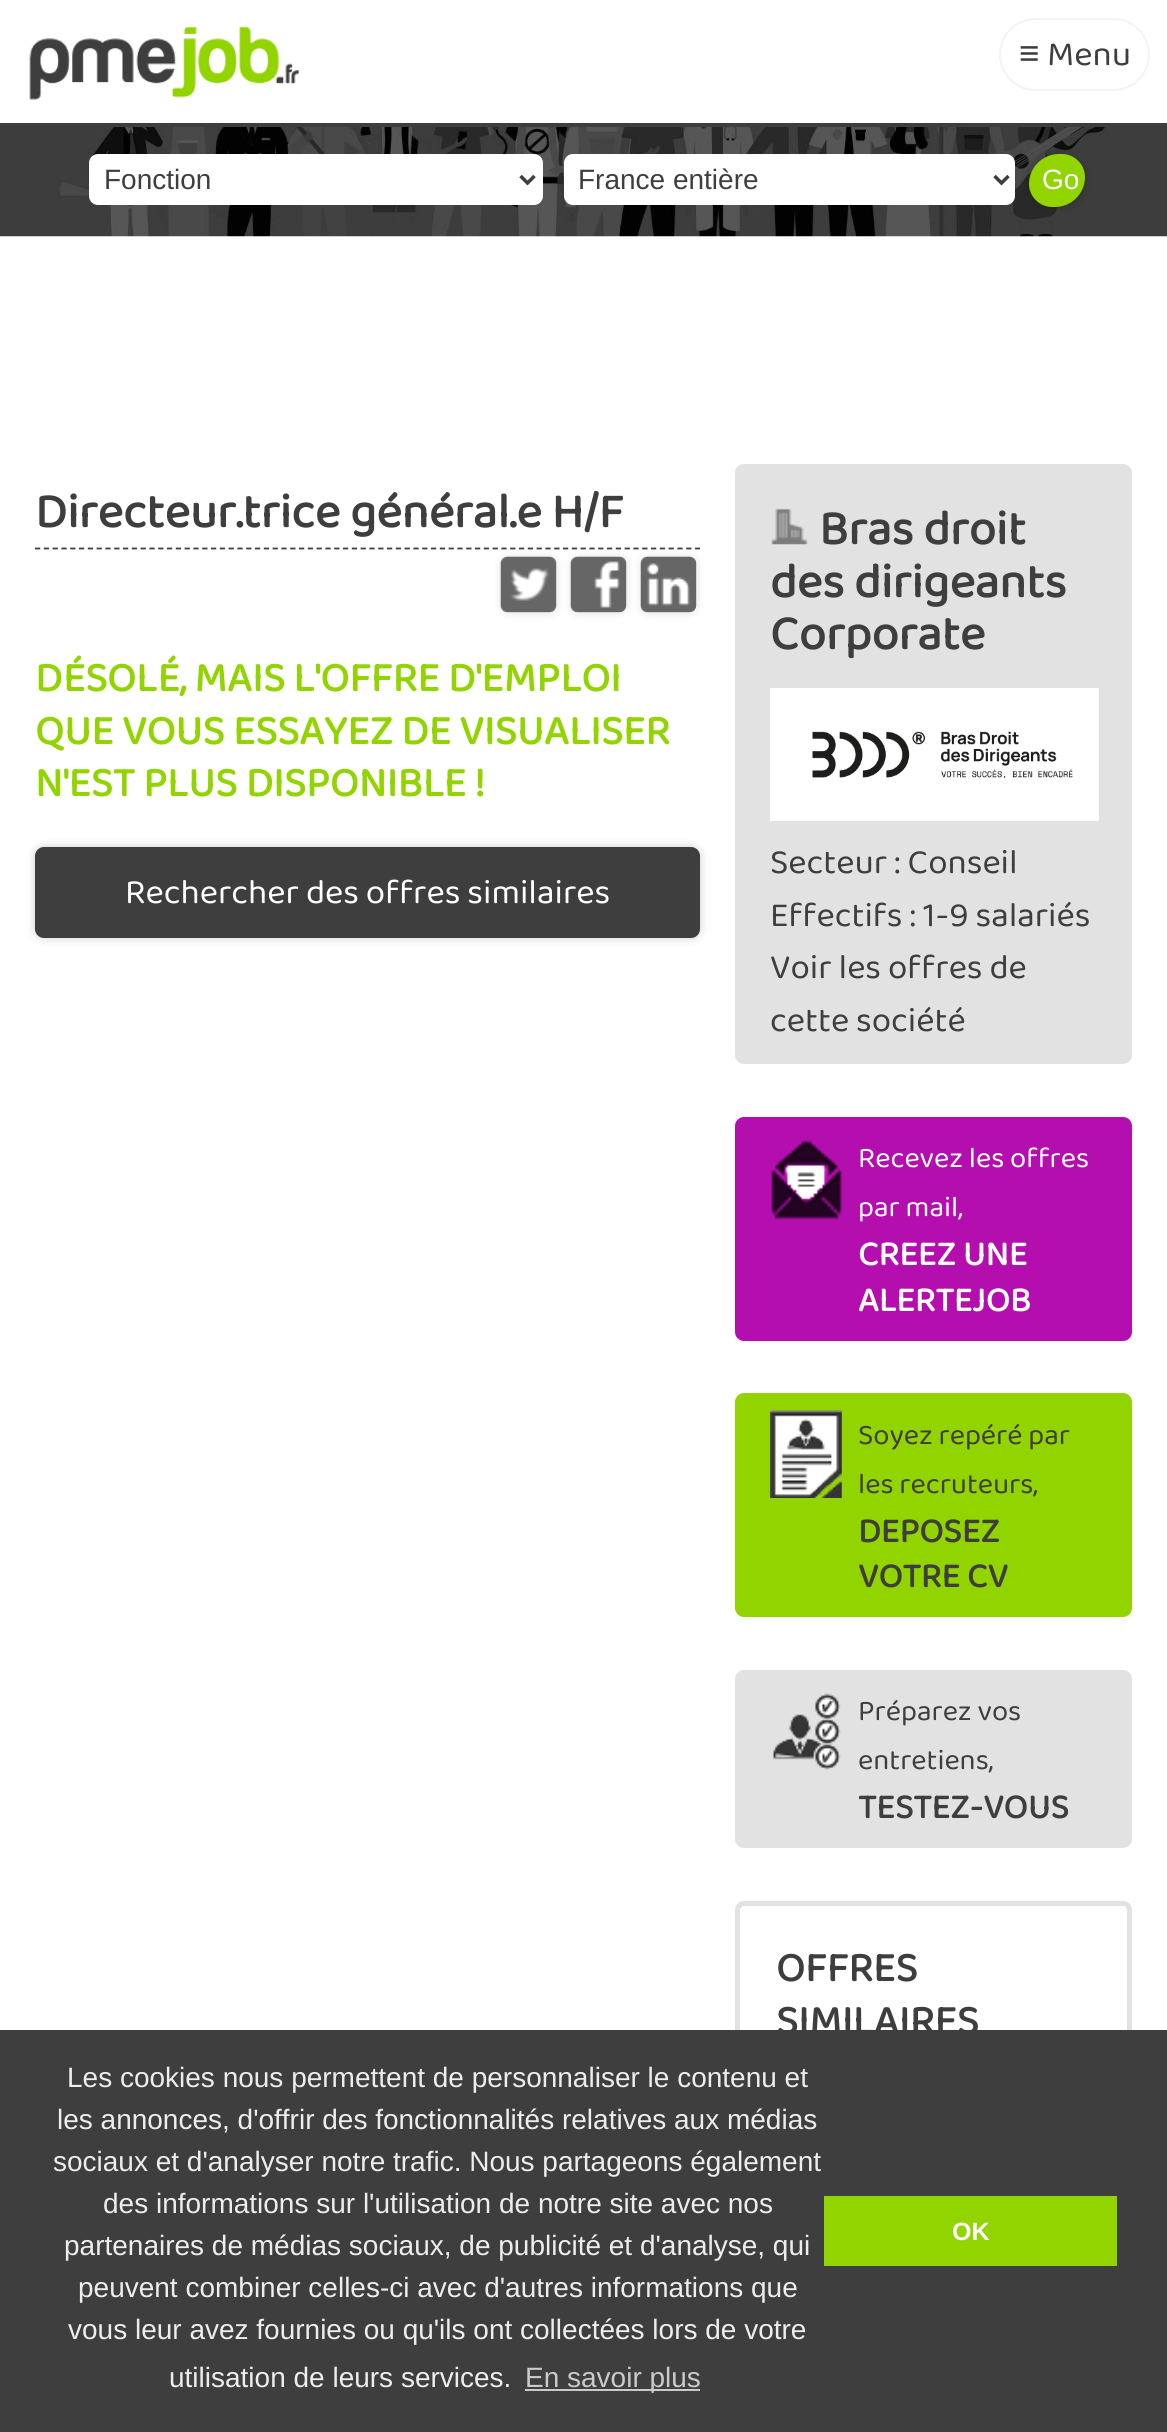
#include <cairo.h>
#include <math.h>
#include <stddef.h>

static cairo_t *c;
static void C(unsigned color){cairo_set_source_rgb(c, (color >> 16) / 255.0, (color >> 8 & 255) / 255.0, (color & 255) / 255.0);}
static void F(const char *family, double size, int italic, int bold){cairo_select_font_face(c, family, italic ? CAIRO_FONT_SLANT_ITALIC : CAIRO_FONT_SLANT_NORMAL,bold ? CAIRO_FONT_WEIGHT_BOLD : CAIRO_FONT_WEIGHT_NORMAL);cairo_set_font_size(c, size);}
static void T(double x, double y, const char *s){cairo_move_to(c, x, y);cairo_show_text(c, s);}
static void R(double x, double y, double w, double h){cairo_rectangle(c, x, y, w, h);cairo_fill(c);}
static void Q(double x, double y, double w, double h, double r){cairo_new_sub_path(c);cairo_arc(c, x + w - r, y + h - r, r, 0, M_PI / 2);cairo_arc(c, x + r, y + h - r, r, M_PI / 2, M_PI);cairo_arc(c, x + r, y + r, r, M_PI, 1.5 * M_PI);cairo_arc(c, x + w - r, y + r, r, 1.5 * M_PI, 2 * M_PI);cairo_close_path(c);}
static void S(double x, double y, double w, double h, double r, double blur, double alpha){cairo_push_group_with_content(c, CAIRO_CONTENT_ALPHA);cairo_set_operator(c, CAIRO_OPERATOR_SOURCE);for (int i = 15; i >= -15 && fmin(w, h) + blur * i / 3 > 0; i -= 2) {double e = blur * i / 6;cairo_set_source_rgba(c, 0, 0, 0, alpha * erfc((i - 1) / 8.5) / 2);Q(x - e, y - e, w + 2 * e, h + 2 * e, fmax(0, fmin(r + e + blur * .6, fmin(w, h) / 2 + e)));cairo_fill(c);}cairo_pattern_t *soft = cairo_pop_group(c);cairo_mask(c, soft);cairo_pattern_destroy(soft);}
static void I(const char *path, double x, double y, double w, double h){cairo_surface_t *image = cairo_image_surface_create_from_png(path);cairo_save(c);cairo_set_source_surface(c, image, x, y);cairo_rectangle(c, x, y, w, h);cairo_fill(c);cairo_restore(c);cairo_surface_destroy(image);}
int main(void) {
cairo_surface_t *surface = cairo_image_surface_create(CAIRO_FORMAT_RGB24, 1167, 2432);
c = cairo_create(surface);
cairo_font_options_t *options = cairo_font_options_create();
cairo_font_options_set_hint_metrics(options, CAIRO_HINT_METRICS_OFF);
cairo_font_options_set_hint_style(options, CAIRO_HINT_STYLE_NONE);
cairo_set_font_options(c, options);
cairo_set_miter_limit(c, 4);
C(0xffffff);
cairo_paint(c);
C(0x3e3e3e);
R(0,123,1167,4);
I("1.png",29,26,271,74);
Q(1000,19,149,71,35.5);
C(0xf3f3f3);
cairo_stroke(c);
F("Liberation Sans",35,0,0);
C(0x3e3e3e);
T(1019,65,"≡");
F("Baloo 2",35,0,0);
T(1047,65,"Menu");
I("2.png",0,127,1167,110);
C(0xffffff);
Q(89,154,454,51,9);
cairo_fill(c);
cairo_new_path(c);
cairo_move_to(c,520.5,176);
cairo_line_to(c,527.5,183);
cairo_line_to(c,534.5,176);
C(0x3e3e3e);
cairo_set_line_width(c,3.5);
cairo_stroke(c);
F("Liberation Sans",28,0,0);
T(104,189,"Fonction");
C(0xffffff);
Q(564,154,451,51,9);
cairo_fill(c);
cairo_new_path(c);
cairo_move_to(c,994.5,176);
cairo_line_to(c,1001.5,183);
cairo_line_to(c,1008.5,176);
C(0x3e3e3e);
cairo_stroke(c);
T(578,189,"France entière");
C(0x000000);
S(1029,154,56,53,30,4.5,.2);
C(0x92d400);
cairo_new_path(c);
cairo_move_to(c,1059,154);
cairo_line_to(c,1062,154);
cairo_curve_to(c,1074.5,154,1085,164.5,1085,177);
cairo_curve_to(c,1085,193.5,1071.5,207,1055,207);
cairo_line_to(c,1052,207);
cairo_curve_to(c,1039.5,207,1029,196.5,1029,184);
cairo_curve_to(c,1029,167.5,1042.5,154,1059,154);
cairo_close_path(c);
cairo_fill(c);
C(0xffffff);
T(1042,189,"Go");
F("Baloo 2",49,0,1);
C(0x3e3e3e);
T(35,527,"Directeur.trice général.e H/F");
cairo_new_path(c);
cairo_move_to(c,35,548.5);
cairo_line_to(c,700,548.5);
cairo_set_line_width(c,1.8);
cairo_set_dash(c,(double[]){5.25,3.55},2,0);
cairo_stroke(c);
cairo_save(c);
cairo_set_fill_rule(c,CAIRO_FILL_RULE_EVEN_ODD);
cairo_new_path(c);
cairo_move_to(c,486,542);
cairo_line_to(c,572,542);
cairo_line_to(c,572,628);
cairo_line_to(c,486,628);
cairo_close_path(c);
cairo_move_to(c,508,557);
cairo_line_to(c,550,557);
cairo_curve_to(c,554,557,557,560,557,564);
cairo_line_to(c,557,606);
cairo_curve_to(c,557,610,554,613,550,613);
cairo_line_to(c,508,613);
cairo_curve_to(c,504,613,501,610,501,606);
cairo_line_to(c,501,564);
cairo_curve_to(c,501,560,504,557,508,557);
cairo_close_path(c);
cairo_clip(c);
C(0x000000);
S(501,557,56,56,7,4.5,.12);
cairo_restore(c);
I("3.png",500,556,57,57);
cairo_save(c);
cairo_set_fill_rule(c,CAIRO_FILL_RULE_EVEN_ODD);
cairo_new_path(c);
cairo_move_to(c,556,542);
cairo_line_to(c,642,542);
cairo_line_to(c,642,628);
cairo_line_to(c,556,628);
cairo_close_path(c);
cairo_move_to(c,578,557);
cairo_line_to(c,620,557);
cairo_curve_to(c,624,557,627,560,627,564);
cairo_line_to(c,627,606);
cairo_curve_to(c,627,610,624,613,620,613);
cairo_line_to(c,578,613);
cairo_curve_to(c,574,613,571,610,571,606);
cairo_line_to(c,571,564);
cairo_curve_to(c,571,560,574,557,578,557);
cairo_close_path(c);
cairo_clip(c);
C(0x000000);
S(571,557,56,56,7,4.5,.12);
cairo_restore(c);
I("4.png",570,556,57,57);
cairo_save(c);
cairo_set_fill_rule(c,CAIRO_FILL_RULE_EVEN_ODD);
cairo_new_path(c);
cairo_move_to(c,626,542);
cairo_line_to(c,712,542);
cairo_line_to(c,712,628);
cairo_line_to(c,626,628);
cairo_close_path(c);
cairo_move_to(c,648,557);
cairo_line_to(c,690,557);
cairo_curve_to(c,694,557,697,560,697,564);
cairo_line_to(c,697,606);
cairo_curve_to(c,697,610,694,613,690,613);
cairo_line_to(c,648,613);
cairo_curve_to(c,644,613,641,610,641,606);
cairo_line_to(c,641,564);
cairo_curve_to(c,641,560,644,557,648,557);
cairo_close_path(c);
cairo_clip(c);
C(0x000000);
S(641,557,56,56,7,4.5,.12);
cairo_restore(c);
I("5.png",640,556,57,57);
F("Baloo 2",42,0,1);
C(0x92d400);
T(35,691,"DÉSOLÉ, MAIS L'OFFRE D'EMPLOI");
T(35,744,"QUE VOUS ESSAYEZ DE VISUALISER");
T(35,796,"N'EST PLUS DISPONIBLE !");
C(0x000000);
S(35,847,665,91,9,4.5,.2);
C(0x3e3e3e);
Q(36,848,663,89,8);
cairo_fill_preserve(c);
cairo_set_line_width(c,2);
cairo_set_dash(c,NULL,0,0);
cairo_stroke(c);
F("Baloo 2",35,0,0);
C(0xffffff);
T(125,903,"Rechercher des offres similaires");
C(0xe2e2e2);
Q(735,464,397,600,9);
cairo_fill(c);
I("6.png",771,508,37,37);
F("Baloo 2",49,0,1);
C(0x3e3e3e);
T(819,544,"Bras droit");
T(770,597,"des dirigeants");
T(770,649,"Corporate");
C(0xffffff);
R(770,688,329,133);
I("7.png",812,731,261,48);
F("Baloo 2",35,0,0);
C(0x3e3e3e);
T(770,873,"Secteur : Conseil");
T(770,926,"Effectifs : 1-9 salariés");
T(770,978,"Voir les offres de");
T(770,1031,"cette société");
C(0xb50eaf);
Q(735,1117,397,224,9);
cairo_fill(c);
I("8.png",771,1139,71,81);
F("Baloo 2",29.25,0,0);
C(0xffffff);
T(858,1167,"Recevez les offres");
T(858,1216,"par mail,");
F("Baloo 2",35,0,1);
T(858,1265,"CREEZ UNE");
T(858,1311,"ALERTEJOB");
C(0x92d400);
Q(735,1393,397,224,9);
cairo_fill(c);
I("9.png",770,1410,72,88);
F("Baloo 2",29.25,0,0);
C(0x3e3e3e);
T(858,1444,"Soyez repéré par");
T(858,1493,"les recruteurs,");
F("Baloo 2",35,0,1);
T(858,1542,"DEPOSEZ");
T(858,1587,"VOTRE CV");
C(0xe2e2e2);
Q(735,1670,397,178,9);
cairo_fill(c);
I("10.png",773,1693,68,77);
F("Baloo 2",29.25,0,0);
C(0x3e3e3e);
T(858,1720,"Préparez vos");
T(858,1769,"entretiens,");
F("Baloo 2",35,0,1);
T(858,1818,"TESTEZ-VOUS");
Q(737.5,1903.5,392,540,6.5);
C(0xe2e2e2);
cairo_set_line_width(c,5);
cairo_stroke(c);
F("Baloo 2",42,0,1);
C(0x3e3e3e);
T(776,1981,"OFFRES");
T(776,2034,"SIMILAIRES");
R(0,2030,1167,402);
F("Liberation Sans",28,0,0);
C(0xededed);
T(67,2087,"Les cookies nous permettent de personnaliser le contenu et");
T(57,2129,"les annonces, d'offrir des fonctionnalités relatives aux médias");
T(53,2171,"sociaux et d'analyser notre trafic. Nous partageons également");
T(103,2213,"des informations sur l'utilisation de notre site avec nos");
T(64,2255,"partenaires de médias sociaux, de publicité et d'analyse, qui");
T(78,2297,"peuvent combiner celles-ci avec d'autres informations que");
T(68,2339,"vous leur avez fournies ou qu'ils ont collectées lors de votre");
T(169,2387,"utilisation de leurs services.");
C(0xcacaca);
R(525,2389,175,2);
T(525,2387,"En savoir plus");
C(0x92d400);
R(824,2196,293,70);
F("Liberation Sans",25,0,1);
C(0xffffff);
T(952,2240,"OK");
cairo_surface_write_to_png(surface, "o.png");
cairo_font_options_destroy(options);
cairo_destroy(c);
cairo_surface_destroy(surface);
return 0;
}
